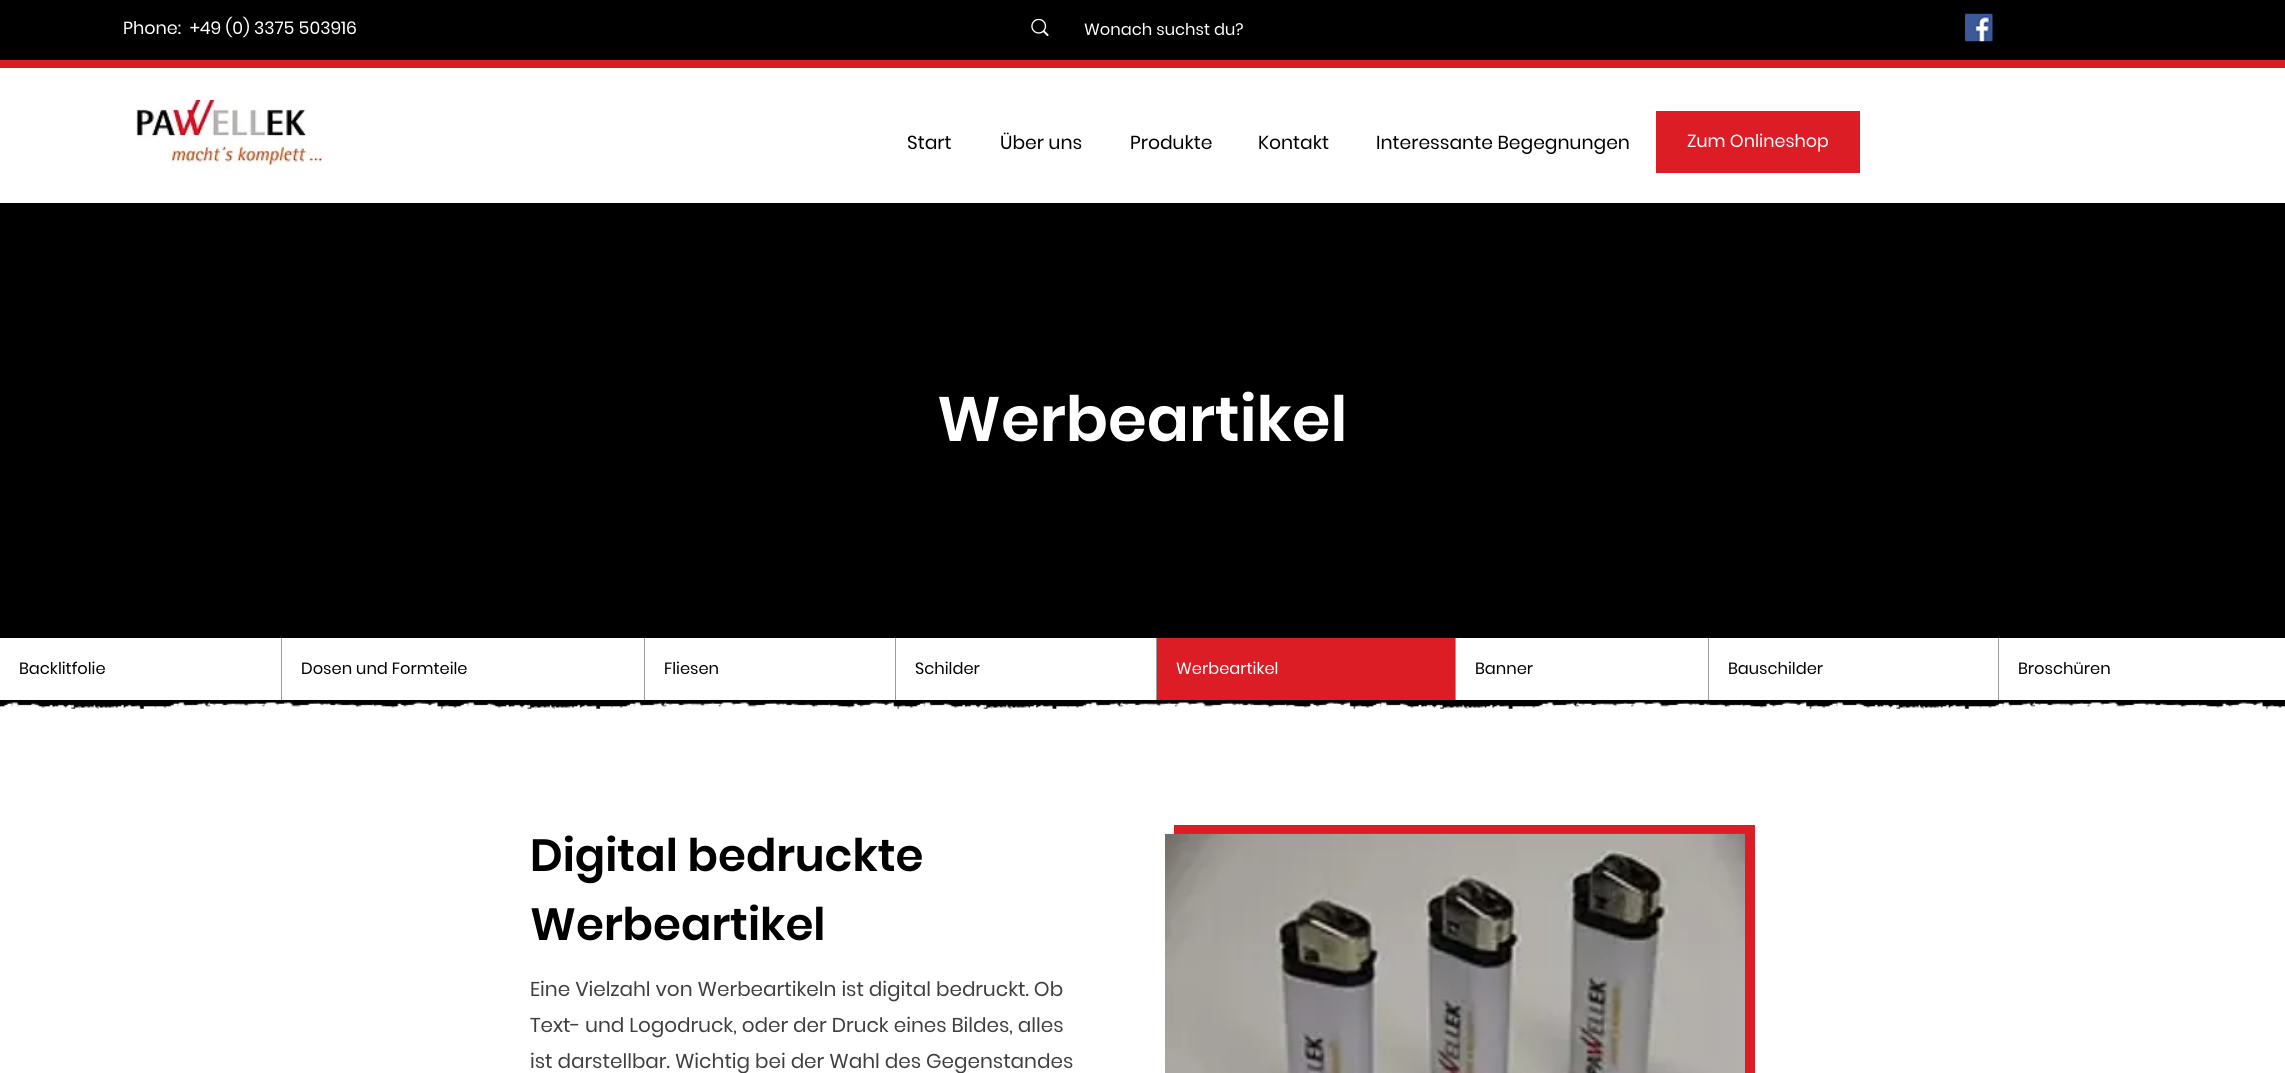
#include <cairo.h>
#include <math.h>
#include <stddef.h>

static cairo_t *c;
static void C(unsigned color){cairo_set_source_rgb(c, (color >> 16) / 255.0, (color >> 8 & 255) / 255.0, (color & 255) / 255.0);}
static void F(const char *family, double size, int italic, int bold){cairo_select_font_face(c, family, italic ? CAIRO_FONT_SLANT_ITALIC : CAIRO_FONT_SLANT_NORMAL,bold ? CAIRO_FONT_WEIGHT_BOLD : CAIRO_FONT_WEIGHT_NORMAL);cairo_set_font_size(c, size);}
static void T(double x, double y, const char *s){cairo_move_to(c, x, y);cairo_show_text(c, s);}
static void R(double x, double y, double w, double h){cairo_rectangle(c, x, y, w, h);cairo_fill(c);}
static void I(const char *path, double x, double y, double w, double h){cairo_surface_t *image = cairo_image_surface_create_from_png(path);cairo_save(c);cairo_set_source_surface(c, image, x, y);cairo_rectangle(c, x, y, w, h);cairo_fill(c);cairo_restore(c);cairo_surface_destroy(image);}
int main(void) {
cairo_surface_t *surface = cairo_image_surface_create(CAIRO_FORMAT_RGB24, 2285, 1073);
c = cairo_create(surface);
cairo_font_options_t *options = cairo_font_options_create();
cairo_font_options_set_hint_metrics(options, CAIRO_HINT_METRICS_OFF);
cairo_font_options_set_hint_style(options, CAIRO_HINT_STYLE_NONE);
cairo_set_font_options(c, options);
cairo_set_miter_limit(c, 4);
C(0x000000);
cairo_paint(c);
F("Poppins",17.5,0,0);
C(0xffffff);
T(123,34,"Phone:  +49 (0) 3375 503916");
I("1.png",1031,19,18,17);
F("Poppins",16.25,0,0);
T(1084,35,"Wonach suchst du?");
I("2.png",1965,13,28,29);
C(0xdd1d26);
R(0,60,2285,8);
C(0xffffff);
R(0,68,2285,135);
I("3.png",135,100,190,70);
F("Poppins",18.75,0,0);
C(0x000000);
T(907,149,"Start");
T(1000,149,"Über uns");
T(1130,149,"Produkte");
T(1258,149,"Kontakt");
T(1376,149,"Interessante Begegnungen");
C(0xdd1d26);
R(1656,111,204,62);
F("Poppins",17.5,0,0);
C(0xffffff);
T(1687,147,"Zum Onlineshop");
F("Poppins SemiBold",62.5,0,0);
T(937,441,"Werbeartikel");
R(0,638,2285,435);
F("Poppins",16.25,0,0);
C(0x000000);
T(19,674,"Backlitfolie");
C(0x9b9b9b);
R(281,638,1,62);
C(0x000000);
T(301,674,"Dosen und Formteile");
C(0x9b9b9b);
R(644,638,1,62);
C(0x000000);
T(664,674,"Fliesen");
C(0x9b9b9b);
R(895,638,1,62);
C(0x000000);
T(915,674,"Schilder");
C(0xdd1d26);
R(1157,638,298,62);
C(0x9b9b9b);
R(1156,638,1,62);
C(0xffffff);
T(1176,674,"Werbeartikel");
C(0x9b9b9b);
R(1455,638,1,62);
C(0x000000);
T(1475,674,"Banner");
C(0x9b9b9b);
R(1708,638,1,62);
C(0x000000);
T(1728,674,"Bauschilder");
C(0x9b9b9b);
R(1998,638,1,62);
C(0x000000);
T(2018,674,"Broschüren");
I("4.png",0,700,2285,9);
F("Poppins SemiBold",45,0,0);
T(530,871,"Digital bedruckte");
T(530,940,"Werbeartikel");
F("Poppins",20,0,0);
C(0x3f3f3f);
T(530,996,"Eine Vielzahl von Werbeartikeln ist digital bedruckt. Ob");
T(530,1032,"Text- und Logodruck, oder der Druck eines Bildes, alles");
T(530,1068,"ist darstellbar. Wichtig bei der Wahl des Gegenstandes");
C(0xdd1d26);
R(1174,825,581,248);
I("5.png",1165,833,580,240);
cairo_surface_write_to_png(surface, "o.png");
cairo_font_options_destroy(options);
cairo_destroy(c);
cairo_surface_destroy(surface);
return 0;
}
